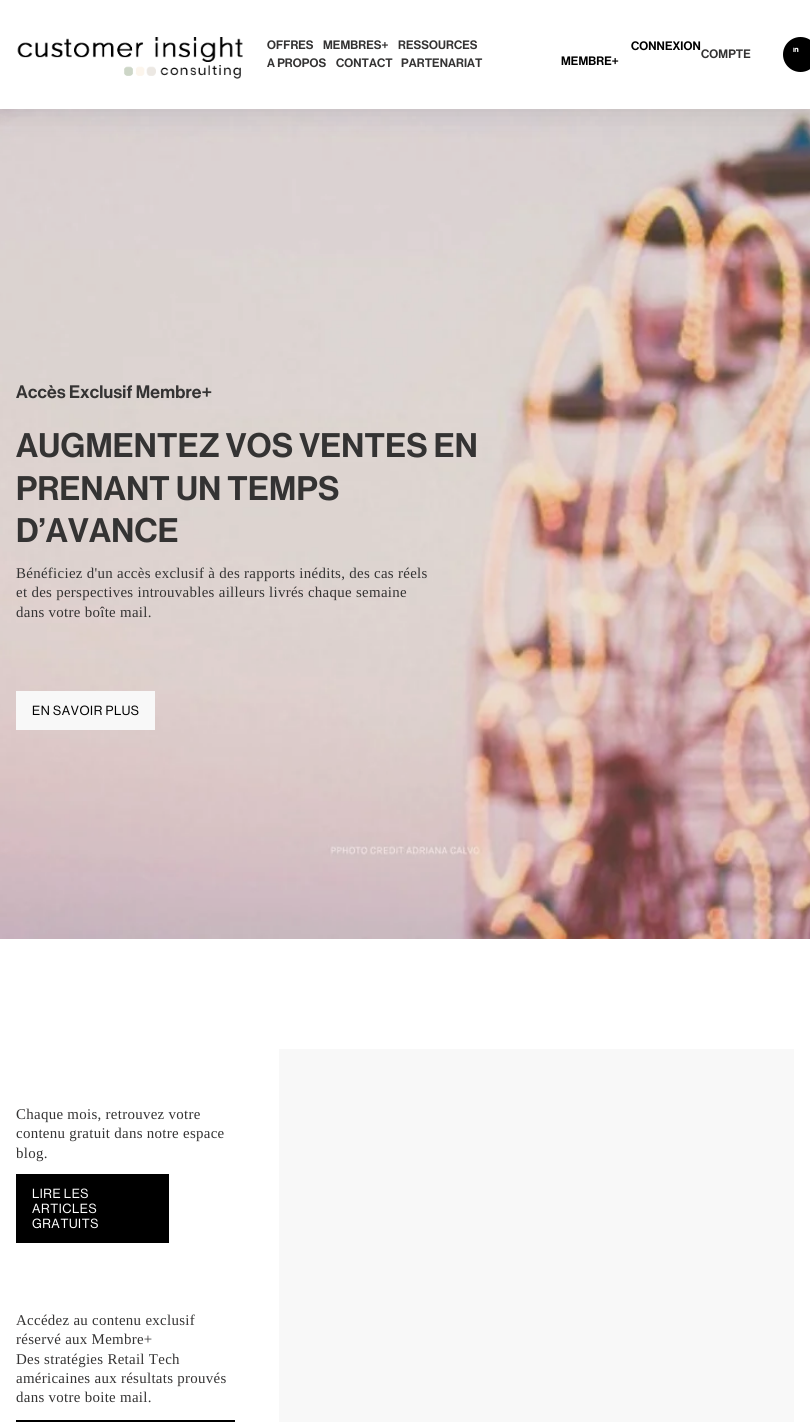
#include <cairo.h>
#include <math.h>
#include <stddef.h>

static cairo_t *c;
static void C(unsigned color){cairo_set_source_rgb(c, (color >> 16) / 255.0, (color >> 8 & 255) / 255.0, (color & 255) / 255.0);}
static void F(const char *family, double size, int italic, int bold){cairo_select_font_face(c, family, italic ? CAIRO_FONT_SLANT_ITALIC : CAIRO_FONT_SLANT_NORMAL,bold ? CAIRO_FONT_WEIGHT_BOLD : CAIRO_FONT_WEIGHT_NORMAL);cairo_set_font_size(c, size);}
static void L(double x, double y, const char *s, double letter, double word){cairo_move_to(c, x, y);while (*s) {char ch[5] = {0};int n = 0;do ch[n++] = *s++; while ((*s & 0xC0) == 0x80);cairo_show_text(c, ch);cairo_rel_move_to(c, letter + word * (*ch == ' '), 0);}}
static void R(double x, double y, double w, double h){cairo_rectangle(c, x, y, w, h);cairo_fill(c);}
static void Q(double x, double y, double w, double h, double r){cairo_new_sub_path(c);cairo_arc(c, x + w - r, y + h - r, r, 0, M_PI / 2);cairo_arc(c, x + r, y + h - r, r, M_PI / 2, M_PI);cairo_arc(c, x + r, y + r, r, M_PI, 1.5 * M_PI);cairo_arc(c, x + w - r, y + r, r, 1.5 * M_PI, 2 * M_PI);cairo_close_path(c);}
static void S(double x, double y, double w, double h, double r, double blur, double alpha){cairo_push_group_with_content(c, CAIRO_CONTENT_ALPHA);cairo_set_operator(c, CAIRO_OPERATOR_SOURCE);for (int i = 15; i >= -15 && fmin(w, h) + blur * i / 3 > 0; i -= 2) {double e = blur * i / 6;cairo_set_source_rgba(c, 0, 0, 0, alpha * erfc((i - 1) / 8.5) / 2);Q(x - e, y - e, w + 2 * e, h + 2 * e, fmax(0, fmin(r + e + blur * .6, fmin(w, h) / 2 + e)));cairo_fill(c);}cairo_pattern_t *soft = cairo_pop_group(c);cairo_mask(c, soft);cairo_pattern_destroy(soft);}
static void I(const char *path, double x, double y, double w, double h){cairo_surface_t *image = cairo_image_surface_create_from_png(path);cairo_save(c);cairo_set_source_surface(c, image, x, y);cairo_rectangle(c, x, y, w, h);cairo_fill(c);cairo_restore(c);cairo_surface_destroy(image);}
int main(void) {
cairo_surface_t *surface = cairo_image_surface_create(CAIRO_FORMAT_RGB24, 810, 1422);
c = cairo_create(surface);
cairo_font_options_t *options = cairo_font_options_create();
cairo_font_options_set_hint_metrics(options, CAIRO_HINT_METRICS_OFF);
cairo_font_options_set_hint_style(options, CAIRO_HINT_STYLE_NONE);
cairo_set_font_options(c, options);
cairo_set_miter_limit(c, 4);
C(0xffffff);
cairo_paint(c);
I("3.png",0,109,810,830);
C(0x343333);
S(0,0,810,109,0,15,.15);
C(0xffffff);
R(0,0,810,109);
I("1.png",17,37,226,42);
F("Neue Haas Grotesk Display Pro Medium",12,0,0);
C(0x343333);
L(267,49,"OFFRES",.1,0);
L(323,49,"MEMBRES+",.1,0);
L(398,49,"RESSOURCES",.1,0);
L(267,67,"A PROPOS",.1,0);
L(336,67,"CONTACT",.1,0);
L(401,67,"PARTENARIAT",.1,0);
C(0x000000);
L(631,50,"CONNEXION",.1,0);
L(561,65,"MEMBRE+",.1,0);
C(0x343333);
L(701,58,"COMPTE",.1,0);
C(0x000000);
cairo_new_path(c);
cairo_arc(c,800.5,54.5,17.5,0,2 * M_PI);
cairo_fill(c);
I("2.png",793,47,6,5);
F("Neue Haas Grotesk Display Pro Medium",17.75,0,0);
C(0x343333);
L(16,398,"Accès Exclusif Membre+",.2,0);
F("Neue Haas Grotesk Display Pro Medium",33.4,0,0);
L(16,457,"AUGMENTEZ VOS VENTES EN",.3,0);
L(16,500,"PRENANT UN TEMPS",.3,0);
L(16,542,"D’AVANCE",.3,0);
F("Liberation Serif",14.9,0,0);
L(16,578,"Bénéficiez d'un accès exclusif à des rapports inédits, des cas réels",.3,0);
L(16,597,"et des perspectives introuvables ailleurs livrés chaque semaine",.3,0);
L(16,617,"dans votre boîte mail.",.3,0);
C(0xf8f8f8);
R(16,691,139,39);
F("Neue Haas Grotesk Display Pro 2 Medium",13,0,0);
C(0x000000);
L(32,715,"EN SAVOIR PLUS",.6,0);
F("Liberation Serif",14.9,0,0);
C(0x343333);
L(16,1119,"Chaque mois, retrouvez votre",.3,0);
L(16,1138,"contenu gratuit dans notre espace",.3,0);
L(16,1158,"blog.",.3,0);
C(0xf8f8f8);
R(279,1049,515,373);
C(0x000000);
R(16,1174,153,69);
F("Neue Haas Grotesk Display Pro 2 Medium",13,0,0);
C(0xffffff);
L(32,1198,"LIRE LES",.6,0);
L(32,1213,"ARTICLES",.6,0);
L(32,1228,"GRATUITS",.6,0);
F("Liberation Serif",14.9,0,0);
C(0x343333);
L(16,1325,"Accédez au contenu exclusif",.3,0);
L(16,1344,"réservé aux Membre+",.3,0);
L(16,1364,"Des stratégies Retail Tech",.3,0);
L(16,1383,"américaines aux résultats prouvés",.3,0);
L(16,1402,"dans votre boite mail.",.3,0);
C(0x000000);
R(16,1420,219,2);
cairo_surface_write_to_png(surface, "o.png");
cairo_font_options_destroy(options);
cairo_destroy(c);
cairo_surface_destroy(surface);
return 0;
}
